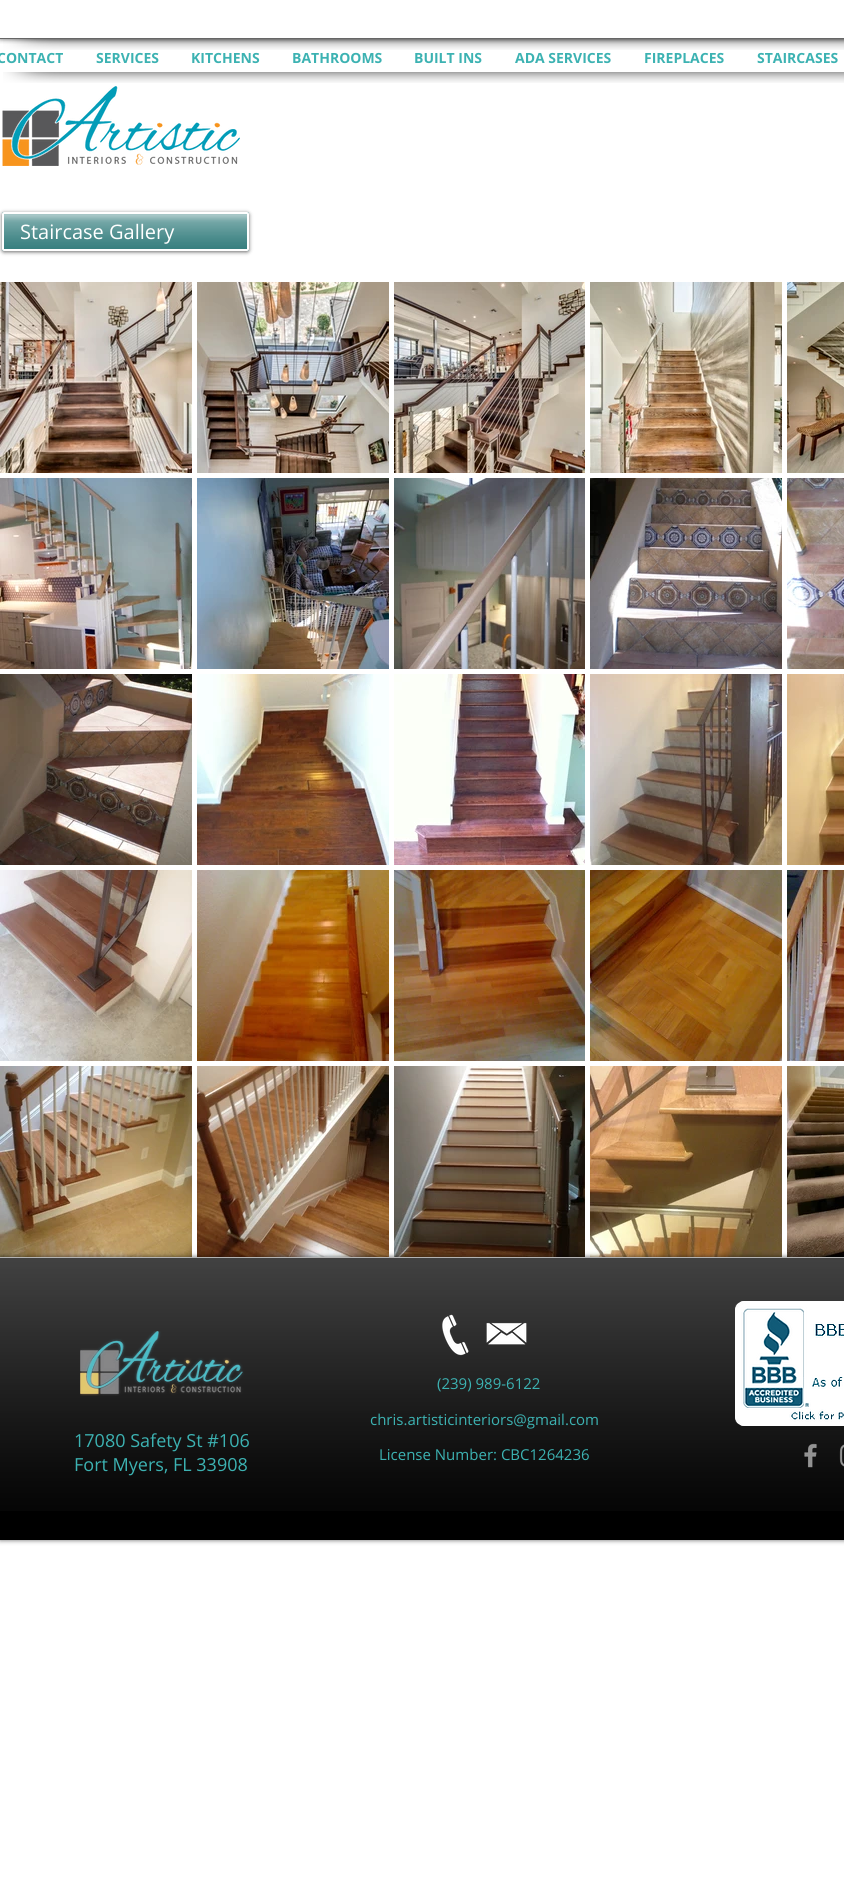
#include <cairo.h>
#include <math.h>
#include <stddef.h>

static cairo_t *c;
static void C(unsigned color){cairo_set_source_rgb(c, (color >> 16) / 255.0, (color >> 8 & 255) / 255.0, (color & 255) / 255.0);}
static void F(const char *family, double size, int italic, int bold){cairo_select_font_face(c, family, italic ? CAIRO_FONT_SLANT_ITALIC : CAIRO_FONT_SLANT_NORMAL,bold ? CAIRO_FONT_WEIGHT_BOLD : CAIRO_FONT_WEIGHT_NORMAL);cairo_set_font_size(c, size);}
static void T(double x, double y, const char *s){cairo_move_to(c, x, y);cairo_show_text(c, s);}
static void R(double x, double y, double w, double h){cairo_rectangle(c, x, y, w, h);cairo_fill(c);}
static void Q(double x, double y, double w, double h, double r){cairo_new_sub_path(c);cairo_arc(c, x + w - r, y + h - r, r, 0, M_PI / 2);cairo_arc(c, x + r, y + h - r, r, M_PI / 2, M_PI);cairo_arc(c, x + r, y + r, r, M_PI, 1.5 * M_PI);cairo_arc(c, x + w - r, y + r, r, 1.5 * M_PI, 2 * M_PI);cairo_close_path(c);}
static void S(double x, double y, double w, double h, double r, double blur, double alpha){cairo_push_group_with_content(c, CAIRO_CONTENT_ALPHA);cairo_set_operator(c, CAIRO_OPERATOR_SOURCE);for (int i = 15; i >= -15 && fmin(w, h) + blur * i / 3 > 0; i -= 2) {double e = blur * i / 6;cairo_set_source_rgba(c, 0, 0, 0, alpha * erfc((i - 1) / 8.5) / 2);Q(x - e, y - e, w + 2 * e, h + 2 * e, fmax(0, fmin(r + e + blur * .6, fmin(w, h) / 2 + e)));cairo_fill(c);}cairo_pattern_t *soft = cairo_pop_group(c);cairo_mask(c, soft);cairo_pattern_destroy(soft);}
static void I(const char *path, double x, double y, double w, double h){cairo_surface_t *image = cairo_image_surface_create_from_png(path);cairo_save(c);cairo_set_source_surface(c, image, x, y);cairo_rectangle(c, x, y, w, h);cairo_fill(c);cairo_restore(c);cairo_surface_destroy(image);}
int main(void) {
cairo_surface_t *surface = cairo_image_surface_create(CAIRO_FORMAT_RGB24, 844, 1902);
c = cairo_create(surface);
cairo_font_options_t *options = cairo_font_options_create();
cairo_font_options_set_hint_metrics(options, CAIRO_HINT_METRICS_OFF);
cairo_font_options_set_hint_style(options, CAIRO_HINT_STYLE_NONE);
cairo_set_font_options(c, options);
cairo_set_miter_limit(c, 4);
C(0xffffff);
cairo_paint(c);
cairo_save(c);
cairo_rectangle(c,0,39,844,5);
cairo_clip(c);
C(0x000000);
S(0,0,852,39,0,2.5,.6);
cairo_restore(c);
C(0x666666);
R(0,38,844,1);
I("1.png",3,39,97,11);
I("2.png",100,39,744,11);
F("Open Sans",14,0,1);
C(0x3cb2b2);
T(-3,63,"CONTACT");
T(96,63,"SERVICES");
T(191,63,"KITCHENS");
T(292,63,"BATHROOMS");
T(414,63,"BUILT INS");
T(515,63,"ADA SERVICES");
T(644,63,"FIREPLACES");
T(757,63,"STAIRCASES");
I("3.png",3,72,97,11);
I("4.png",100,72,744,11);
I("5.png",2,86,238,80);
C(0x000000);
S(2,213,247,39,2,2,.6);
C(0x287676);
Q(2,212,247,39,2);
cairo_fill(c);
I("6.png",2,214,247,37);
Q(3,213,245,37,1);
C(0xffffff);
cairo_stroke(c);
F("Open Sans",20,0,0);
T(20,239,"Staircase Gallery");
I("7.png",0,282,192,191);
I("8.png",197,282,192,191);
I("9.png",394,282,191,191);
I("10.png",590,282,192,191);
I("11.png",787,282,57,191);
I("12.png",0,478,192,191);
I("13.png",197,478,192,191);
I("14.png",394,478,191,191);
I("15.png",590,478,192,191);
I("16.png",787,478,57,191);
I("17.png",0,674,192,191);
I("18.png",197,674,192,191);
I("19.png",394,674,191,191);
I("20.png",590,674,192,191);
I("21.png",787,674,57,191);
I("22.png",0,870,192,191);
I("23.png",197,870,192,191);
I("24.png",394,870,191,191);
I("25.png",590,870,192,191);
I("26.png",787,870,57,191);
I("27.png",0,1066,192,191);
I("28.png",197,1066,192,191);
I("29.png",394,1066,191,191);
I("30.png",590,1066,192,191);
I("31.png",787,1066,57,191);
C(0x000000);
S(0,1257,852,283,0,2.5,.6);
C(0x000000);
R(0,1258,844,282);
I("32.png",0,1258,844,253);
C(0xb3b3b3);
R(0,1257,844,1);
I("33.png",80,1331,164,65);
I("34.png",442,1314,27,42);
I("35.png",486,1322,41,23);
I("36.png",735,1301,109,125);
I("37.png",804,1443,13,25);
I("38.png",839,1444,5,23);
F("Open Sans",15,0,0);
C(0x3cb2b2);
T(437,1389,"(239) 989-6122");
T(370,1425,"chris.artisticinteriors@gmail.com");
F("Open Sans",18,0,0);
T(74,1447,"17080 Safety St #106");
T(74,1471,"Fort Myers, FL 33908");
F("Open Sans",15,0,0);
T(379,1460,"License Number: CBC1264236");
cairo_surface_write_to_png(surface, "o.png");
cairo_font_options_destroy(options);
cairo_destroy(c);
cairo_surface_destroy(surface);
return 0;
}
